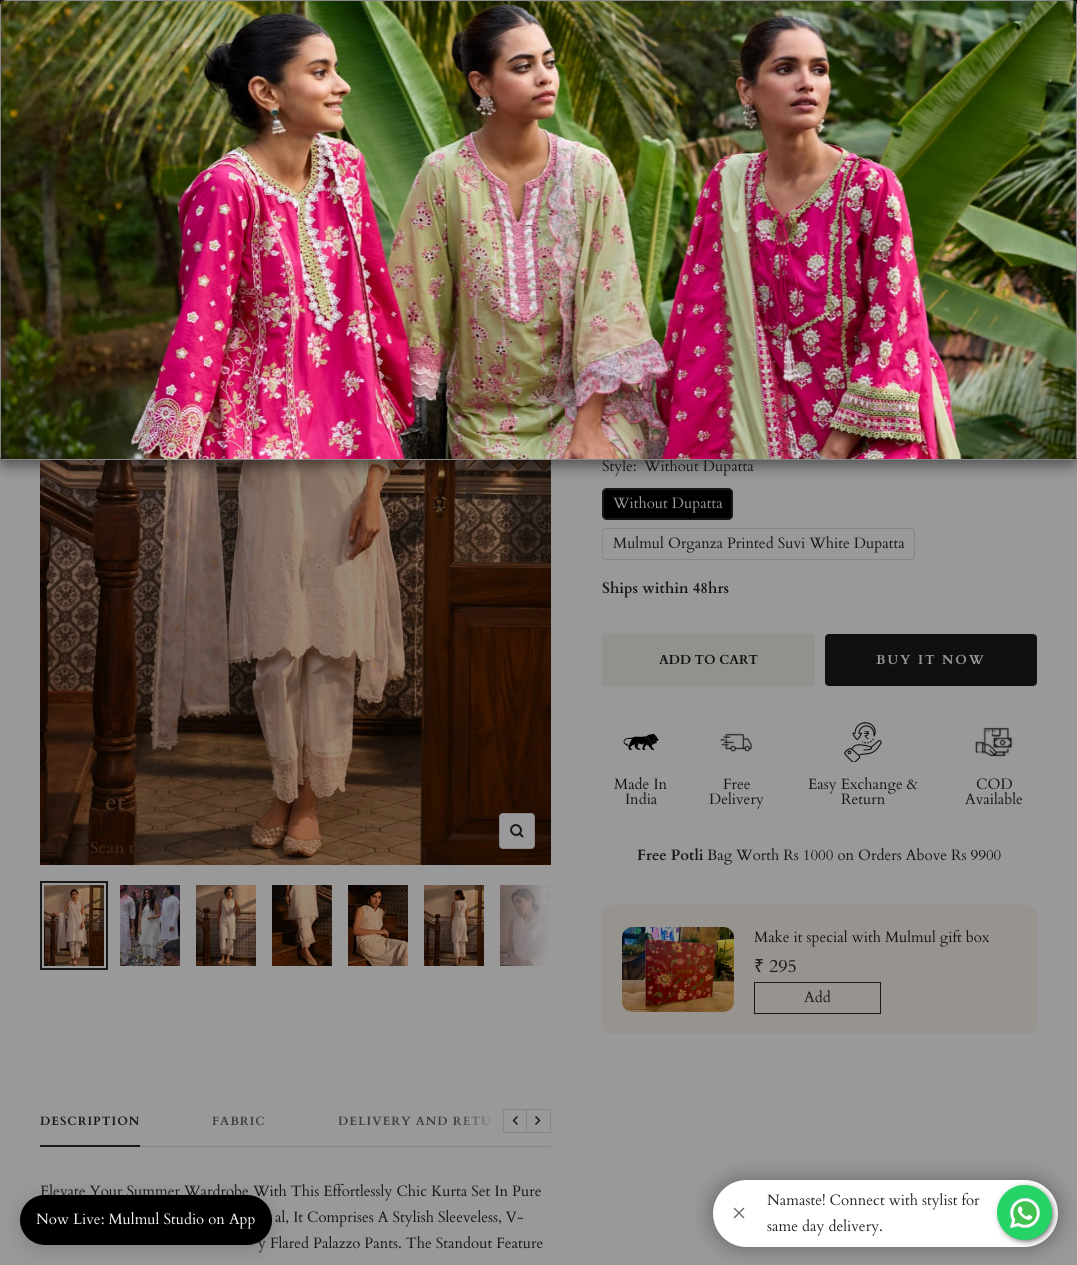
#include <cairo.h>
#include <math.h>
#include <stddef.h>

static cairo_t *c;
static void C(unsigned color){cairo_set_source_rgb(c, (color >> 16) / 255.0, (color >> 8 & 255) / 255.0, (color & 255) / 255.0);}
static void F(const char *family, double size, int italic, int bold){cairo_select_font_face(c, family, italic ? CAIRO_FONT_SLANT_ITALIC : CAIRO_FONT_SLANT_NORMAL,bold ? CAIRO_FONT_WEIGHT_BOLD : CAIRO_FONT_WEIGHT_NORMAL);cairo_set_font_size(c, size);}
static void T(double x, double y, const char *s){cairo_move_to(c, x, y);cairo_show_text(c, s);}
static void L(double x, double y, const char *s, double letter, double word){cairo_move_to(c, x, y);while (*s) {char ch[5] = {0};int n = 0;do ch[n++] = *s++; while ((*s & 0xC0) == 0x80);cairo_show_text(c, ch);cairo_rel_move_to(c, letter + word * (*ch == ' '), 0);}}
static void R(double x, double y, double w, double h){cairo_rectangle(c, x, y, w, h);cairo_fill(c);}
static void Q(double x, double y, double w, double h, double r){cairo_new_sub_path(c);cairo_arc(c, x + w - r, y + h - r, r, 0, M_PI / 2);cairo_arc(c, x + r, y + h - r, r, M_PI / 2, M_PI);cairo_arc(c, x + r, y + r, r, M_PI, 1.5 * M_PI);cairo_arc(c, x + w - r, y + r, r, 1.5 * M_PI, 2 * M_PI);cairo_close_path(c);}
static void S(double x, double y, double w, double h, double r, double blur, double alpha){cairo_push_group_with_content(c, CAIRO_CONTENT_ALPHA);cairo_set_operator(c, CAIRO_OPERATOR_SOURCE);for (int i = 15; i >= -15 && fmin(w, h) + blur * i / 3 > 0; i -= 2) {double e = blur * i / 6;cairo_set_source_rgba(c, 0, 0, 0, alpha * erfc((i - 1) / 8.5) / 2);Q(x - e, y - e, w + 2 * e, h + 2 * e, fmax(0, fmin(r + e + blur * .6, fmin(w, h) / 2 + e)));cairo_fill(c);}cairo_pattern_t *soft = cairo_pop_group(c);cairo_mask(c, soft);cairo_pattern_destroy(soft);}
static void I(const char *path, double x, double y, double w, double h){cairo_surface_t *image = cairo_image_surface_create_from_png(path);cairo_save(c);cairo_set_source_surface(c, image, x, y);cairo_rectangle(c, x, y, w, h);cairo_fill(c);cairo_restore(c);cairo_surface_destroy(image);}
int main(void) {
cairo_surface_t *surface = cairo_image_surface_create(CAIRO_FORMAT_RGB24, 1077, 1265);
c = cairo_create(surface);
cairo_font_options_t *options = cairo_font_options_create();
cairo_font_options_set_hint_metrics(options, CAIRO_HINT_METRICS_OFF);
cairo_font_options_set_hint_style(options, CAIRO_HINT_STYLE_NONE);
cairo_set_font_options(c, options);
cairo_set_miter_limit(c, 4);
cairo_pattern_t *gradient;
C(0x999999);
cairo_paint(c);
C(0x040404);
R(0,0,1077,54);
I("2.png",40,460,511,405);
C(0x000000);
Q(602.5,488.5,130,31,3.5);
cairo_fill_preserve(c);
C(0x868686);
cairo_set_line_width(c,1);
cairo_stroke(c);
Q(602.5,488.5,130,31,4.5);
C(0x181818);
cairo_stroke(c);
cairo_save(c);
cairo_set_fill_rule(c,CAIRO_FILL_RULE_EVEN_ODD);
cairo_new_path(c);
cairo_move_to(c,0,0);
cairo_line_to(c,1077,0);
cairo_line_to(c,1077,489);
cairo_line_to(c,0,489);
cairo_close_path(c);
cairo_move_to(c,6,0);
cairo_line_to(c,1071,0);
cairo_curve_to(c,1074.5,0,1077,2.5,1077,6);
cairo_line_to(c,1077,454);
cairo_curve_to(c,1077,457.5,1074.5,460,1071,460);
cairo_line_to(c,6,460);
cairo_curve_to(c,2.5,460,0,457.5,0,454);
cairo_line_to(c,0,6);
cairo_curve_to(c,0,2.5,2.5,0,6,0);
cairo_close_path(c);
cairo_clip(c);
C(0x000000);
S(0,5,1077,460,6,7.5,.5);
cairo_restore(c);
F("Cardo",15,0,0);
T(602,471,"Style:");
T(644,471,"Without Dupatta");
Q(.5,.5,1076,459,5.5);
C(0x888888);
cairo_stroke(c);
I("1.png",1,1,1075,458);
C(0x999999);
Q(499.5,813.5,35,35,3.5);
cairo_fill_preserve(c);
C(0x868686);
cairo_stroke(c);
cairo_new_path(c);
cairo_move_to(c,519.5,833.5);
cairo_curve_to(c,524,829,517,822,512.5,826.5);
cairo_curve_to(c,508,831,515,838,519.5,833.5);
cairo_close_path(c);
cairo_move_to(c,519.5,833.5);
cairo_line_to(c,523,837);
C(0x181818);
cairo_set_line_width(c,2);
cairo_stroke(c);
I("3.png",44,885,60,81);
cairo_rectangle(c,41,882,66,87);
cairo_stroke(c);
I("4.png",120,885,60,81);
I("5.png",196,885,60,81);
I("6.png",272,885,60,81);
I("7.png",348,885,60,81);
I("8.png",424,885,60,81);
I("9.png",500,885,51,81);
I("10.png",540,887,11,18);
gradient = cairo_pattern_create_linear(551,926,486,926);
cairo_pattern_add_color_stop_rgba(gradient,0,0.6,0.6,0.6,1);
cairo_pattern_add_color_stop_rgba(gradient,1,0.6,0.6,0.6,0);
cairo_set_source(c,gradient);
cairo_pattern_destroy(gradient);
R(500,885,51,81);
Q(603.5,489.5,128,29,3.5);
C(0x181818);
cairo_set_line_width(c,1);
cairo_stroke(c);
C(0x999999);
T(613,508,"Without Dupatta");
Q(602.5,528.5,312,31,3.5);
C(0x868686);
cairo_stroke(c);
C(0x181818);
T(613,548,"Mulmul Organza Printed Suvi White Dupatta");
F("Cardo",15,0,1);
T(602,593,"Ships within 48hrs");
C(0x93918e);
Q(602,634,213,52,4);
cairo_fill(c);
F("Cardo",13,0,1);
C(0x101010);
T(659,664,"ADD TO CART");
Q(825,634,212,52,4);
cairo_fill(c);
C(0x999999);
L(876,664,"BUY IT NOW",2,0);
I("11.png",623,734,36,16);
F("Cardo",15,0,0);
C(0x181818);
T(614,789,"Made In");
T(625,804,"India");
I("12.png",719,733,34,21);
T(723,789,"Free");
T(709,804,"Delivery");
I("13.png",844,722,39,40);
T(808,789,"Easy Exchange &");
T(841,804,"Return");
I("14.png",974,726,40,31);
T(976,789,"COD");
T(965,804,"Available");
F("Cardo",15,0,1);
T(637,860,"Free Potli");
F("Cardo",15,0,0);
T(707,860,"Bag Worth Rs 1000 on Orders Above Rs 9900");
C(0x979490);
Q(602,905,435,129,10);
cairo_fill(c);
I("15.png",622,927,112,85);
C(0x181818);
T(754,942,"Make it special with Mulmul gift box");
F("Noto Sans",18,0,0);
T(754,972,"₹");
F("Cardo",18,0,0);
T(769,972,"295");
cairo_rectangle(c,754.5,982.5,126,31);
cairo_stroke(c);
F("Cardo",15,0,0);
T(804,1002,"Add");
C(0x868686);
R(140,1146,411,1);
F("Cardo",12,0,1);
C(0x181818);
L(40,1125,"DESCRIPTION",1,0);
C(0x3f3f3f);
L(212,1125,"FABRIC",1,0);
L(338,1125,"DELIVERY AND RETU",1,0);
C(0x181818);
R(40,1145,100,2);
gradient = cairo_pattern_create_linear(503,1129,455,1129);
cairo_pattern_add_color_stop_rgba(gradient,0,0.6,0.6,0.6,1);
cairo_pattern_add_color_stop_rgba(gradient,1,0.6,0.6,0.6,0);
cairo_set_source(c,gradient);
cairo_pattern_destroy(gradient);
R(457,1116,34,10);
cairo_rectangle(c,503.5,1109.5,23,23);
C(0x868686);
cairo_stroke(c);
I("16.png",512,1116,6,9);
R(527,1109,24,1);
R(550,1109,1,24);
R(527,1132,24,1);
I("17.png",535,1116,6,9);
F("Cardo",15,0,0);
C(0x181818);
T(40,1196,"Elevate Your Summer Wardrobe With This Effortlessly Chic Kurta Set In Pure");
T(275,1222,"al, It Comprises A Stylish Sleeveless, V-");
T(258,1248,"y Flared Palazzo Pants. The Standout Feature");
C(0x000000);
S(20,1199,252,50,25,10,.15);
C(0x000000);
Q(20,1195,252,50,25);
cairo_fill(c);
F("Cardo",24,0,1);
C(0x4a3120);
T(105,810,"et");
F("Cardo",16,0,1);
C(0x372418);
T(90,853,"Scan t");
F("Cardo",15,0,0);
C(0xf8f5f5);
T(36,1224,"Now Live: Mulmul Studio on App");
C(0x000000);
S(713,1180,345,67,33.5,11,.35);
C(0xffffff);
Q(713,1180,345,67,33.5);
cairo_fill(c);
I("18.png",733,1207,12,12);
C(0x282828);
T(767,1205,"Namaste! Connect with stylist for");
T(767,1231,"same day delivery.");
C(0x000000);
S(1002,1190,49,49,24.5,4,1);
C(0x25d366);
cairo_arc(c,1024.5,1212.5,27.5,0,2 * M_PI);
cairo_fill(c);
I("19.png",1009,1198,31,31);
cairo_surface_write_to_png(surface, "o.png");
cairo_font_options_destroy(options);
cairo_destroy(c);
cairo_surface_destroy(surface);
return 0;
}
